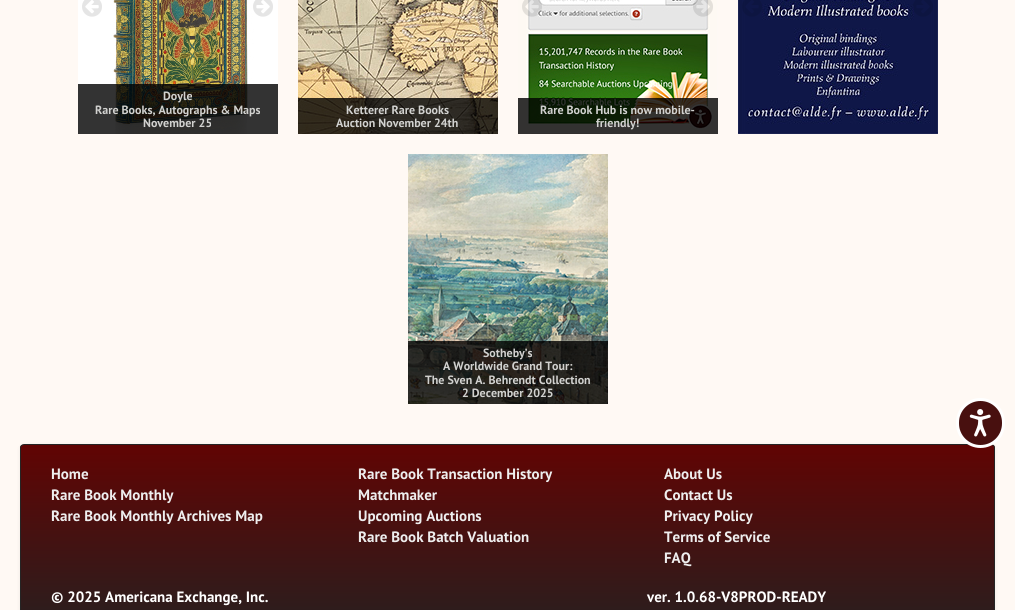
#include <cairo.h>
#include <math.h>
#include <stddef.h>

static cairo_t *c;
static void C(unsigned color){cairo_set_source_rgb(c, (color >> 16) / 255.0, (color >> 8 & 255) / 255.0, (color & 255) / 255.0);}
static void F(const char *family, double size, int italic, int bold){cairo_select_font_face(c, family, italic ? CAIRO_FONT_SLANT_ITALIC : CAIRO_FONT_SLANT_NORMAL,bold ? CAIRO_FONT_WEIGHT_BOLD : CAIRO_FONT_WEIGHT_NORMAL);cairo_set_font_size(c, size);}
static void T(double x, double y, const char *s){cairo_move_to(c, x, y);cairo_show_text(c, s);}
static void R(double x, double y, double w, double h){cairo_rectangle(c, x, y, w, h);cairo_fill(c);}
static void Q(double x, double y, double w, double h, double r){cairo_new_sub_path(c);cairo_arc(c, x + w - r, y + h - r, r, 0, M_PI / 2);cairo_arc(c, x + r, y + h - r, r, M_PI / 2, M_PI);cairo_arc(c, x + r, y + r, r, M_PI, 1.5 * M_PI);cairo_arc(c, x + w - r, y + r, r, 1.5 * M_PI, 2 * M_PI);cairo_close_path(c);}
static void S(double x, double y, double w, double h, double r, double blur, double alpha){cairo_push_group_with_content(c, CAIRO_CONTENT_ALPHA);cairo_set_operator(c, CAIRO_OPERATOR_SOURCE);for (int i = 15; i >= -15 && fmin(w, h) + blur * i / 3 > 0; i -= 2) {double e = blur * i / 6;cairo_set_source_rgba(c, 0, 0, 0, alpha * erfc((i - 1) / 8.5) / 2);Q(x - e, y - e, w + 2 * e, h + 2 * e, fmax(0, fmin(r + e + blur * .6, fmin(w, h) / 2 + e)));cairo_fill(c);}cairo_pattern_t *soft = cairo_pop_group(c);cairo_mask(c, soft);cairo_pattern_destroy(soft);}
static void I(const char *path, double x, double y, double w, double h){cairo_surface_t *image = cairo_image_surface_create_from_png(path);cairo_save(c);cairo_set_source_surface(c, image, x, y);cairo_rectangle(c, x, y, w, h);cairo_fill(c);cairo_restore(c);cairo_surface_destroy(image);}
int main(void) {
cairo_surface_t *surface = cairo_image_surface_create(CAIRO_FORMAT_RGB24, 1015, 610);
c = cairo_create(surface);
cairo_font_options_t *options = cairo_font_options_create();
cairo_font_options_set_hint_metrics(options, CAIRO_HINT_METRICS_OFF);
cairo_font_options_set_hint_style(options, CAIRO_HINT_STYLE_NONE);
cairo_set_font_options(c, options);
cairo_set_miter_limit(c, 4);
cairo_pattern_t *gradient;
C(0xfff9f4);
cairo_paint(c);
I("1.png",78,0,200,134);
I("2.png",82,0,20,17);
I("3.png",253,0,20,17);
cairo_set_source_rgba(c,0,0,0,0.8);
R(78,84,200,50);
F("PT Sans",12,0,1);
C(0xd1d1cf);
T(163,100,"Doyle");
T(95,114,"Rare Books, Autographs & Maps");
T(143,127,"November 25");
I("4.png",298,0,200,134);
I("5.png",302,0,20,17);
I("6.png",473,0,20,17);
cairo_set_source_rgba(c,0,0,0,0.8);
R(298,98,200,36);
C(0xd1d1cf);
T(346,114,"Ketterer Rare Books");
T(336,127,"Auction November 24th");
I("7.png",518,0,200,134);
I("8.png",522,0,20,17);
I("9.png",693,0,20,17);
cairo_set_source_rgba(c,0,0,0,0.8);
R(518,98,200,36);
C(0xd1d1cf);
T(540,114,"Rare Book Hub is now mobile-");
T(596,127,"friendly!");
I("10.png",738,0,200,134);
I("11.png",742,0,20,17);
I("12.png",913,0,20,17);
I("13.png",408,154,200,250);
I("14.png",412,266,20,21);
I("15.png",583,266,20,21);
cairo_set_source_rgba(c,0,0,0,0.8);
R(408,341,200,63);
C(0xd1d1cf);
T(483,357,"Sotheby’s");
T(443,370,"A Worldwide Grand Tour:");
T(425,384,"The Sven A. Behrendt Collection");
T(462,397,"2 December 2025");
C(0x000000);
S(20,445,975,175,4,2,.07);
cairo_save(c);
Q(20,444,975,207,4);
cairo_clip(c);
gradient = cairo_pattern_create_linear(508,445,508,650);
cairo_pattern_add_color_stop_rgba(gradient,0,0.38,0.016,0.012,1);
cairo_pattern_add_color_stop_rgba(gradient,1,0.133,0.133,0.133,1);
cairo_set_source(c,gradient);
cairo_pattern_destroy(gradient);
R(20,445,975,165);
cairo_restore(c);
Q(20.5,444.5,974,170,3.5);
C(0x252525);
cairo_set_line_width(c,1);
cairo_stroke(c);
F("PT Sans",15,0,1);
C(0xeeeeee);
T(51,479,"Home");
T(51,500,"Rare Book Monthly");
T(51,521,"Rare Book Monthly Archives Map");
T(358,479,"Rare Book Transaction History");
T(358,500,"Matchmaker");
T(358,521,"Upcoming Auctions");
T(358,542,"Rare Book Batch Valuation");
T(664,479,"About Us");
T(664,500,"Contact Us");
T(664,521,"Privacy Policy");
T(664,542,"Terms of Service");
T(664,563,"FAQ");
C(0xffffff);
T(51,602,"© 2025 Americana Exchange, Inc.");
T(647,602,"ver. 1.0.68-V8PROD-READY");
C(0x48100f);
Q(957.5,399.5,46,47,23);
cairo_fill_preserve(c);
C(0xffffff);
cairo_set_line_width(c,3);
cairo_stroke(c);
I("16.png",969,409,22,28);
cairo_surface_write_to_png(surface, "o.png");
cairo_font_options_destroy(options);
cairo_destroy(c);
cairo_surface_destroy(surface);
return 0;
}
